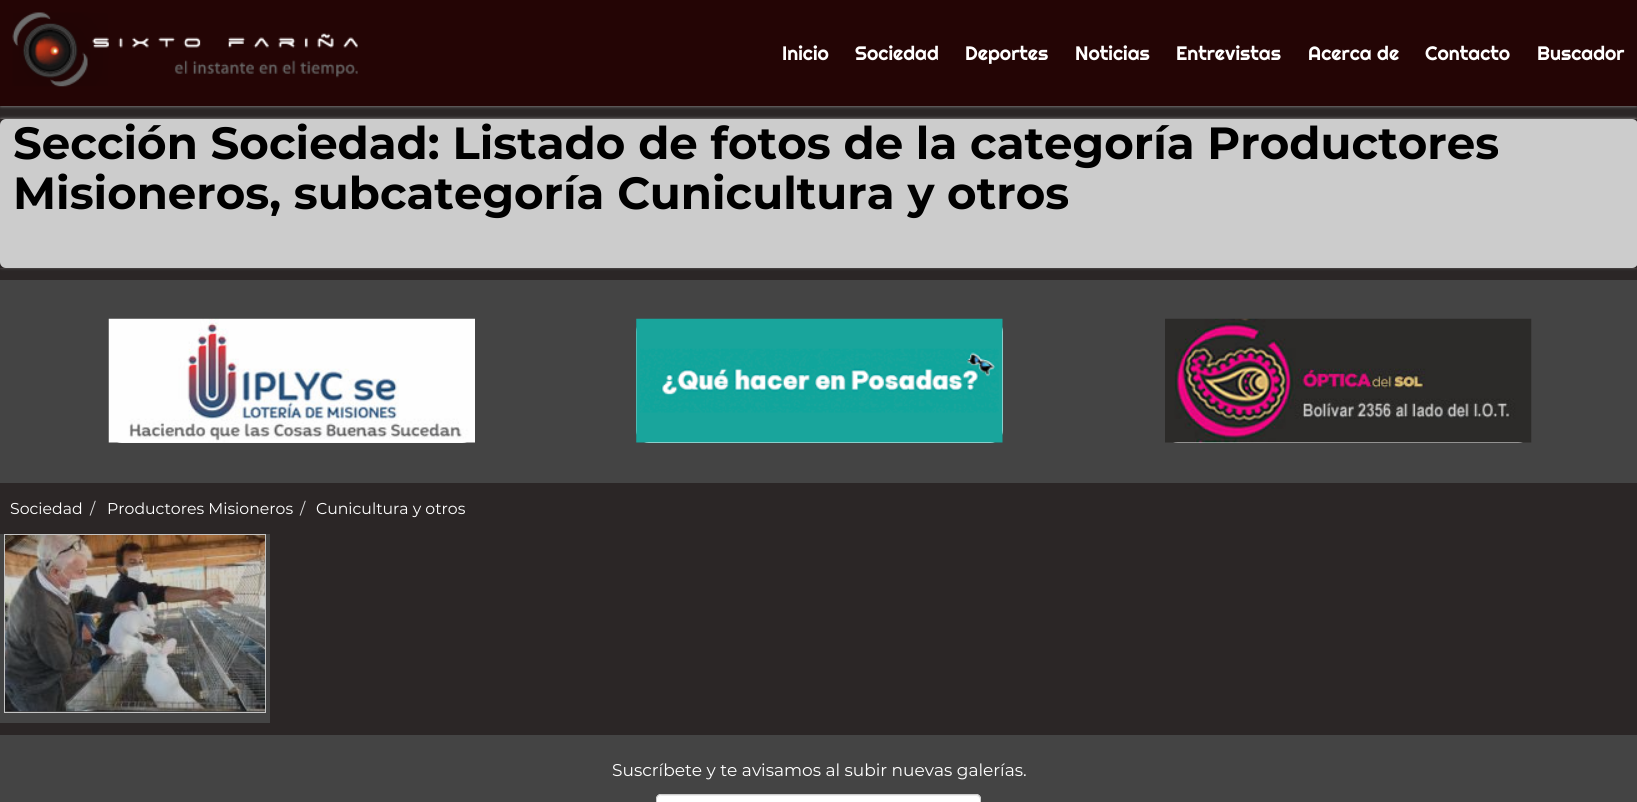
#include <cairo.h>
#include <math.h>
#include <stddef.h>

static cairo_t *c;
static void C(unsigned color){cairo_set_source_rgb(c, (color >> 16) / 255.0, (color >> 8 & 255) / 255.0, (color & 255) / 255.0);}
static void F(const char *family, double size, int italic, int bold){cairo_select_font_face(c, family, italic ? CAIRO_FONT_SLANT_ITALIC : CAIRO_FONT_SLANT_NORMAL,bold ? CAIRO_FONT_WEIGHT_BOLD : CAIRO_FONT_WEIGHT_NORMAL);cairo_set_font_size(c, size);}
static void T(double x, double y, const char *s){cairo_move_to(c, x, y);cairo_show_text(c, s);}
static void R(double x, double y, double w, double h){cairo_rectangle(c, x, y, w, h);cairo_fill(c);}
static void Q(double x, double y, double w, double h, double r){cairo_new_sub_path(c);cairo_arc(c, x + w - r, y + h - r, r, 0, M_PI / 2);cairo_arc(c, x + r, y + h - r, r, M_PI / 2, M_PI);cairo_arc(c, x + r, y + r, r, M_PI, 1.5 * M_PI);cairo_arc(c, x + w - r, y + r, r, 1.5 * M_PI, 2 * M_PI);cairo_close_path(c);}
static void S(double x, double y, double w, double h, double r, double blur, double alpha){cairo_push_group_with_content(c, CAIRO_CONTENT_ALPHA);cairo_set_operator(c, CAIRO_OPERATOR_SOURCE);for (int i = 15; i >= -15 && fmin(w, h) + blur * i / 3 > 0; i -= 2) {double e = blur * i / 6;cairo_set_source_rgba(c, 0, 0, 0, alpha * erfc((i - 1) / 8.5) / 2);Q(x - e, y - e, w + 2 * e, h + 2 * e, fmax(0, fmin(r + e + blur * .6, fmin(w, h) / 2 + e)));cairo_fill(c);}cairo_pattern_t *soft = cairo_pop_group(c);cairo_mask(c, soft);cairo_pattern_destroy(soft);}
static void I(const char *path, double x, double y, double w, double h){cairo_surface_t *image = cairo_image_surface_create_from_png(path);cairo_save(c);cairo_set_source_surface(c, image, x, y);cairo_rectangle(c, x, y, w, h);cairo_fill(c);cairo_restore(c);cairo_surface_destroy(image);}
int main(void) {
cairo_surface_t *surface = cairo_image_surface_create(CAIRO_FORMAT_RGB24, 1637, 802);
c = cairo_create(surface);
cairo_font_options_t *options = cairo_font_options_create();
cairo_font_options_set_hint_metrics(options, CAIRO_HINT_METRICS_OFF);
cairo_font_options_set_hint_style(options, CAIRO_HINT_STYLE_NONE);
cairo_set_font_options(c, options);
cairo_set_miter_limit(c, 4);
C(0x2b2626);
cairo_paint(c);
C(0xffffff);
S(1,1,1635,104,0,2,1);
C(0x240505);
R(0,0,1637,106);
I("1.png",12,12,346,75);
F("Righteous",19.5,0,0);
C(0xffffff);
T(782,60,"Inicio");
T(855,60,"Sociedad");
T(965,60,"Deportes");
T(1075,60,"Noticias");
T(1176,60,"Entrevistas");
T(1308,60,"Acerca de");
T(1425,60,"Contacto");
T(1537,60,"Buscador");
cairo_save(c);
cairo_set_fill_rule(c,CAIRO_FILL_RULE_EVEN_ODD);
cairo_new_path(c);
cairo_move_to(c,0,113);
cairo_line_to(c,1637,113);
cairo_line_to(c,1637,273);
cairo_line_to(c,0,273);
cairo_close_path(c);
cairo_move_to(c,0,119);
cairo_line_to(c,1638,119);
cairo_line_to(c,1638,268);
cairo_line_to(c,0,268);
cairo_close_path(c);
cairo_clip(c);
C(0xffffff);
S(1,120,1635,146,0,2,1);
cairo_restore(c);
C(0xcccccc);
Q(0,119,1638,149,6);
cairo_fill(c);
F("Montserrat",45.1,0,1);
C(0x000000);
T(13,159,"Sección Sociedad: Listado de fotos de la categoría Productores");
T(13,209,"Misioneros, subcategoría Cunicultura y otros");
C(0x444444);
R(0,280,1637,203);
C(0xfafafa);
Q(109,319,366,124,13);
cairo_fill(c);
I("2.png",108,318,367,125);
Q(636,319,367,124,13);
cairo_fill(c);
I("3.png",636,318,367,125);
Q(1165,319,366,124,13);
cairo_fill(c);
I("4.png",1165,318,367,125);
F("Montserrat",15.7,0,0);
C(0xffffff);
T(10,514,"Sociedad");
C(0xdddddd);
T(90,514,"/");
C(0xffffff);
T(107,514,"Productores Misioneros");
C(0xdddddd);
T(300,514,"/");
C(0xffffff);
T(316,514,"Cunicultura y otros");
C(0x444444);
R(0,534,270,189);
cairo_rectangle(c,4.5,534.5,261,178);
C(0xc4c4c4);
cairo_set_line_width(c,1);
cairo_stroke(c);
I("5.png",5,535,260,177);
C(0x444444);
R(0,735,1637,67);
F("Montserrat",17,0,0);
C(0xffffff);
T(612,776,"Suscríbete y te avisamos al subir nuevas galerías.");
Q(656,794,325,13,5);
cairo_fill(c);
C(0xececec);
cairo_new_path(c);
cairo_move_to(c,661,796);
cairo_line_to(c,976,796);
cairo_curve_to(c,978,796,980,798,980,800);
cairo_line_to(c,980,799);
cairo_curve_to(c,980,797,978,795,976,795);
cairo_line_to(c,662,795);
cairo_curve_to(c,660,795,658,797,658,799);
cairo_line_to(c,658,800);
cairo_curve_to(c,658,798,659,796,661,796);
cairo_close_path(c);
cairo_fill(c);
Q(656.5,794.5,324,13,4.5);
C(0xcccccc);
cairo_stroke(c);
cairo_surface_write_to_png(surface, "o.png");
cairo_font_options_destroy(options);
cairo_destroy(c);
cairo_surface_destroy(surface);
return 0;
}
